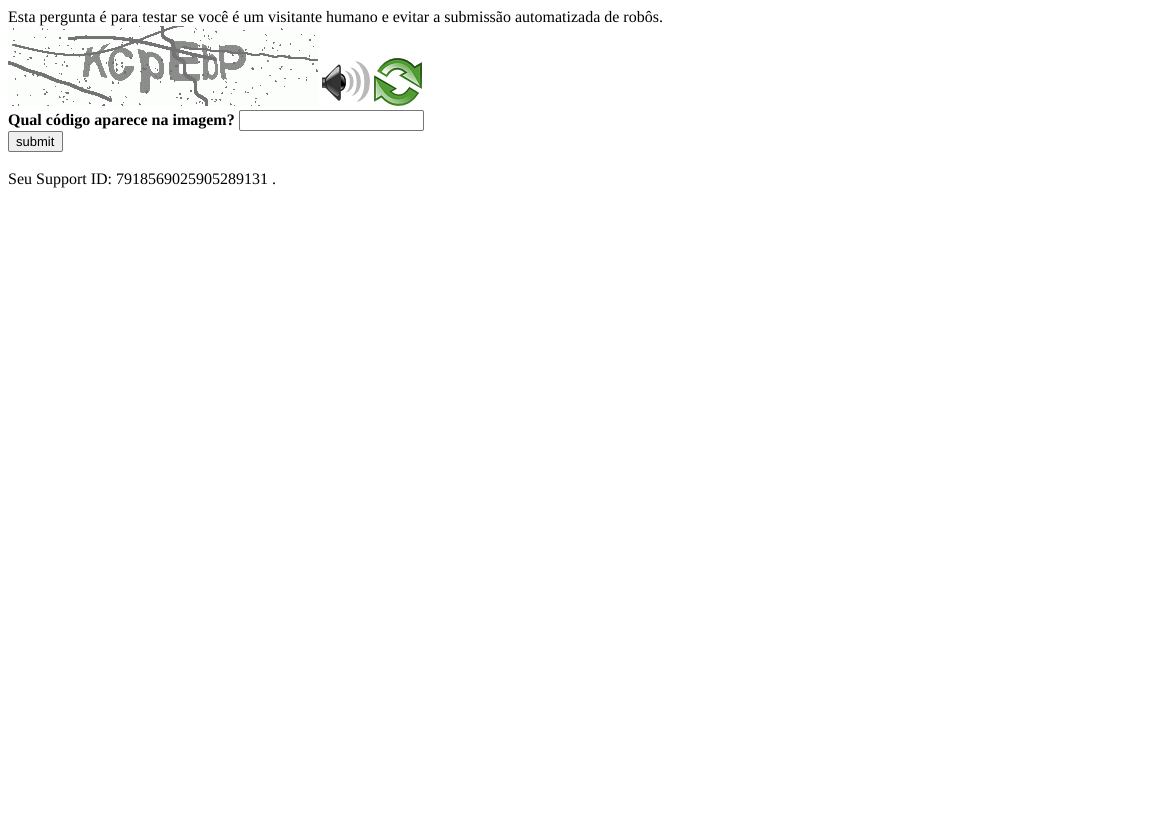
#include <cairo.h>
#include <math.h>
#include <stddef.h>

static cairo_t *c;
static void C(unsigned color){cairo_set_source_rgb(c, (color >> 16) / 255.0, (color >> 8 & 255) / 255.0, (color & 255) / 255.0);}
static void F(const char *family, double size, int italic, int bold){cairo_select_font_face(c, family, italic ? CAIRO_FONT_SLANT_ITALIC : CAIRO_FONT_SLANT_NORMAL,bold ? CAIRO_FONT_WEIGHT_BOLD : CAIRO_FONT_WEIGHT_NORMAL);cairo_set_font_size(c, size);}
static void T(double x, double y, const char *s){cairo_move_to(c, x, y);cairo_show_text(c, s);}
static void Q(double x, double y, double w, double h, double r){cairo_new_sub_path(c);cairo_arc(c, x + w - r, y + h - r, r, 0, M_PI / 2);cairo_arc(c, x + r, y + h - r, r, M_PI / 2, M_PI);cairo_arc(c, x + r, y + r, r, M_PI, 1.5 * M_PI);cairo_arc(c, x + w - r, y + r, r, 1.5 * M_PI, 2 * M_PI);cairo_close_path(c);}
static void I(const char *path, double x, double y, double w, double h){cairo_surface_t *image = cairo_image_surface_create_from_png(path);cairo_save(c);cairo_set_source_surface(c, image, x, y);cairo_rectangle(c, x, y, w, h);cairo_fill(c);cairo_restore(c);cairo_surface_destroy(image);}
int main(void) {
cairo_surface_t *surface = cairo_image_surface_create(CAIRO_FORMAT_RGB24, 1166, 815);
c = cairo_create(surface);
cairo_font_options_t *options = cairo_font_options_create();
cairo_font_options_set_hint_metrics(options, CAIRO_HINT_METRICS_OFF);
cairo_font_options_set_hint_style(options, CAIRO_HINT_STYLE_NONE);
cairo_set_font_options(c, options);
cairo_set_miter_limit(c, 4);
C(0xffffff);
cairo_paint(c);
F("Liberation Serif",16,0,0);
C(0x000000);
T(8,22,"Esta pergunta é para testar se você é um visitante humano e evitar a submissão automatizada de robôs.");
I("1.png",8,26,310,80);
I("2.png",322,61,48,41);
I("3.png",374,58,48,48);
F("Liberation Serif",16,0,1);
T(8,125,"Qual código aparece na imagem?");
Q(239.5,110.5,184,20,1.5);
C(0x767676);
cairo_set_line_width(c,1);
cairo_stroke(c);
C(0xefefef);
Q(8.5,131.5,54,20,1.5);
cairo_fill_preserve(c);
C(0x767676);
cairo_stroke(c);
F("Liberation Sans",13,0,0);
C(0x000000);
T(16,146,"submit");
F("Liberation Serif",16,0,0);
T(8,184,"Seu Support ID: 7918569025905289131 .");
cairo_surface_write_to_png(surface, "o.png");
cairo_font_options_destroy(options);
cairo_destroy(c);
cairo_surface_destroy(surface);
return 0;
}
